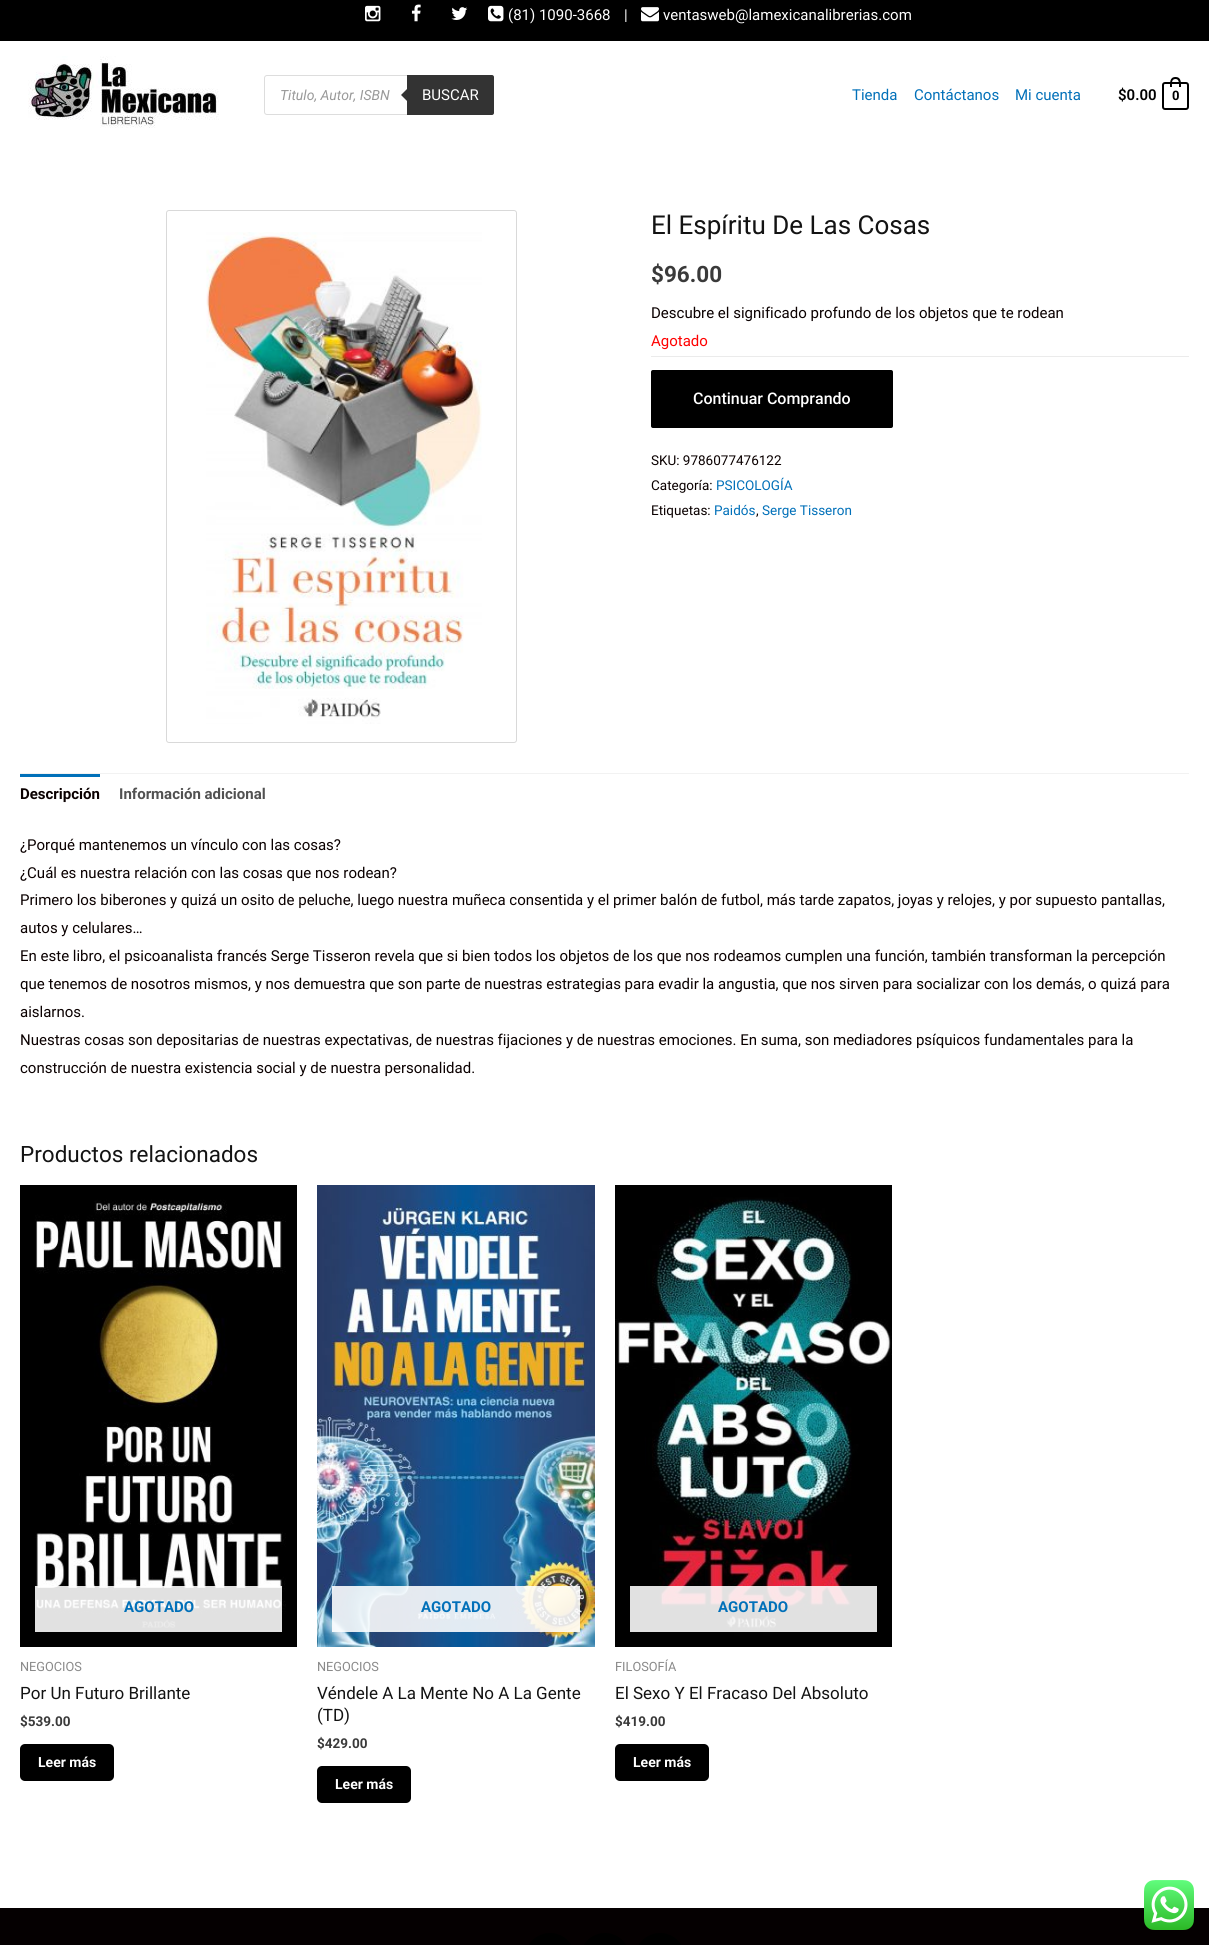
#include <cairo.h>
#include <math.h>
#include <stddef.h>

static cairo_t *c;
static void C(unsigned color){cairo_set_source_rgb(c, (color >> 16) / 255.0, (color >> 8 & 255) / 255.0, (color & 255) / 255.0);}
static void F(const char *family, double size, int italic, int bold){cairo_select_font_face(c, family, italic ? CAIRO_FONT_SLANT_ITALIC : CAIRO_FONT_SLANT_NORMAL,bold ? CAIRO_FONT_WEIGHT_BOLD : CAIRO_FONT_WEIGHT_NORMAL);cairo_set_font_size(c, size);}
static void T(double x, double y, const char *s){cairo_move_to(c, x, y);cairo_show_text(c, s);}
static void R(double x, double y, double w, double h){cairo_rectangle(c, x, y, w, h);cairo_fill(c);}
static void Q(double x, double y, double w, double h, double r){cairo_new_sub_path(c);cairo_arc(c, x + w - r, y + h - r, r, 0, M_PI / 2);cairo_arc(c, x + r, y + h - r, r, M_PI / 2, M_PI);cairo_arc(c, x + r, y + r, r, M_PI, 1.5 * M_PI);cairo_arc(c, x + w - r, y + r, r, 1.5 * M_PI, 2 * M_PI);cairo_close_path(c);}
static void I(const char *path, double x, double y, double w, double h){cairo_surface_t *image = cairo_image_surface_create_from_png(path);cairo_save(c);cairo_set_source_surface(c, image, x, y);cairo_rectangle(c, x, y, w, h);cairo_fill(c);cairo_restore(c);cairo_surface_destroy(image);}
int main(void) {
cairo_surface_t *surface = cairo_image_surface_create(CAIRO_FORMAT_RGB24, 1209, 1945);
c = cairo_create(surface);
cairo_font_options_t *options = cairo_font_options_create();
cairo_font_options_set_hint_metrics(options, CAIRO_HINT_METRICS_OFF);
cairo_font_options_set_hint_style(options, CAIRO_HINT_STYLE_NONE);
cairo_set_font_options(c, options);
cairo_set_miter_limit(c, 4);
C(0xffffff);
cairo_paint(c);
C(0x000000);
R(0,0,1209,41);
I("1.png",365,5,16,17);
I("2.png",411,4,10,18);
I("3.png",451,7,17,13);
I("4.png",488,5,16,17);
F("Roboto",15,0,0);
C(0xffffff);
T(508,20,"(81) 1090-3668");
T(624,20,"|");
I("5.png",641,7,18,15);
T(663,20,"ventasweb@lamexicanalibrerias.com");
I("6.png",28,56,191,72);
Q(264.5,75.5,229,39,2.5);
C(0xdddddd);
cairo_set_line_width(c,1);
cairo_stroke(c);
F("Roboto",14,1,0);
C(0x999999);
T(280,100,"Titulo, Autor, ISBN");
C(0x333333);
cairo_new_path(c);
cairo_move_to(c,407,75);
cairo_line_to(c,492,75);
cairo_curve_to(c,493,75,494,76,494,77);
cairo_line_to(c,494,113);
cairo_curve_to(c,494,114,493,115,492,115);
cairo_line_to(c,407,115);
cairo_close_path(c);
cairo_fill(c);
cairo_new_path(c);
cairo_move_to(c,409,87);
cairo_line_to(c,409,103);
cairo_line_to(c,401,95);
cairo_close_path(c);
cairo_fill(c);
F("Roboto",15,0,0);
C(0xffffff);
T(422,100,"BUSCAR");
C(0x0170b9);
T(852,100,"Tienda");
T(914,100,"Contáctanos");
T(1015,100,"Mi cuenta");
F("Roboto SemiBold",15,0,0);
C(0x000000);
T(1118,100,"$0.00");
Q(1163,83,25,26,2);
cairo_set_line_width(c,2);
cairo_stroke(c);
cairo_set_fill_rule(c,CAIRO_FILL_RULE_EVEN_ODD);
cairo_new_path(c);
cairo_move_to(c,1175.5,77);
cairo_curve_to(c,1181.5,77,1181,83,1181,87);
cairo_line_to(c,1170,87);
cairo_curve_to(c,1170,83,1169.5,77,1175.5,77);
cairo_close_path(c);
cairo_move_to(c,1175.5,79);
cairo_curve_to(c,1179.5,79,1179,84,1179,87);
cairo_line_to(c,1172,87);
cairo_curve_to(c,1172,84,1171,79,1175.5,79);
cairo_close_path(c);
cairo_fill(c);
F("Roboto",13,0,1);
T(1172,100,"0");
Q(166.5,210.5,350,532,2.5);
C(0xd9d9d9);
cairo_set_line_width(c,1);
cairo_stroke(c);
I("7.png",206,232,276,492);
F("Roboto",26,0,0);
C(0x131313);
T(651,234,"El Espíritu De Las Cosas");
F("Roboto",22.5,0,1);
C(0x3a3a3a);
T(651,282,"$96.00");
F("Roboto",15,0,0);
C(0x0a0000);
T(651,318,"Descubre el significado profundo de los objetos que te rodean");
C(0xff0000);
T(651,346,"Agotado");
C(0xebebeb);
R(651,356,538,1);
C(0x000000);
Q(651,370,242,58,2);
cairo_fill(c);
Q(651.5,370.5,241,57,1.5);
cairo_set_source_rgba(c,0,0,0,0.12);
cairo_stroke(c);
F("Roboto Medium",16,0,0);
C(0xffffff);
T(693,404,"Continuar Comprando");
F("Roboto",13.5,0,0);
C(0x0a0000);
T(651,465,"SKU: 9786077476122");
T(651,490,"Categoría:");
C(0x0170b9);
T(716,490,"PSICOLOGÍA");
C(0x0a0000);
T(651,515,"Etiquetas:");
C(0x0170b9);
T(714,515,"Paidós");
C(0x0a0000);
T(756,515,",");
C(0x0170b9);
T(762,515,"Serge Tisseron");
C(0xf2f2f2);
R(20,773,1169,1);
C(0x0170b9);
R(20,774,80,3);
F("Roboto",15,0,1);
C(0x0a0000);
T(20,799,"Descripción");
C(0x515151);
T(119,799,"Información adicional");
F("Roboto",15,0,0);
C(0x0a0000);
T(20,850,"¿Porqué mantenemos un vínculo con las cosas?");
T(20,878,"¿Cuál es nuestra relación con las cosas que nos rodean?");
T(20,905,"Primero los biberones y quizá un osito de peluche, luego nuestra muñeca consentida y el primer balón de futbol, más tarde zapatos, joyas y relojes, y por supuesto pantallas,");
T(20,933,"autos y celulares…");
T(20,961,"En este libro, el psicoanalista francés Serge Tisseron revela que si bien todos los objetos de los que nos rodeamos cumplen una función, también transforman la percepción");
T(20,989,"que tenemos de nosotros mismos, y nos demuestra que son parte de nuestras estrategias para evadir la angustia, que nos sirven para socializar con los demás, o quizá para");
T(20,1017,"aislarnos.");
T(20,1045,"Nuestras cosas son depositarias de nuestras expectativas, de nuestras fijaciones y de nuestras emociones. En suma, son mediadores psíquicos fundamentales para la");
T(20,1073,"construcción de nuestra existencia social y de nuestra personalidad.");
F("Roboto",22.5,0,0);
C(0x131313);
T(20,1162,"Productos relacionados");
I("8.png",20,1185,277,462);
cairo_set_source_rgba(c,1,1,1,0.88);
R(35,1586,247,46);
F("Roboto",15,0,1);
C(0x0170b9);
T(124,1612,"AGOTADO");
F("Roboto",12.75,0,0);
C(0x898989);
T(20,1671,"NEGOCIOS");
F("Roboto",17,0,0);
C(0x131313);
T(20,1699,"Por Un Futuro Brillante");
F("Roboto",13.5,0,1);
C(0x3a3a3a);
T(20,1726,"$539.00");
C(0x000000);
Q(20,1744,94,37,5);
cairo_fill(c);
F("Roboto",14,0,1);
C(0xffffff);
T(38,1767,"Leer más");
I("9.png",317,1185,278,462);
cairo_set_source_rgba(c,1,1,1,0.88);
R(332,1586,248,46);
F("Roboto",15,0,1);
C(0x0170b9);
T(421,1612,"AGOTADO");
F("Roboto",12.75,0,0);
C(0x898989);
T(317,1671,"NEGOCIOS");
F("Roboto",17,0,0);
C(0x131313);
T(317,1699,"Véndele A La Mente No A La Gente");
T(317,1721,"(TD)");
F("Roboto",13.5,0,1);
C(0x3a3a3a);
T(317,1748,"$429.00");
C(0x000000);
Q(317,1766,94,37,5);
cairo_fill(c);
F("Roboto",14,0,1);
C(0xffffff);
T(335,1789,"Leer más");
I("10.png",615,1185,277,462);
cairo_set_source_rgba(c,1,1,1,0.88);
R(630,1586,247,46);
F("Roboto",15,0,1);
C(0x0170b9);
T(718,1612,"AGOTADO");
F("Roboto",12.75,0,0);
C(0x898989);
T(615,1671,"FILOSOFÍA");
F("Roboto",17,0,0);
C(0x131313);
T(615,1699,"El Sexo Y El Fracaso Del Absoluto");
F("Roboto",13.5,0,1);
C(0x3a3a3a);
T(615,1726,"$419.00");
C(0x000000);
Q(615,1744,94,37,5);
cairo_fill(c);
F("Roboto",14,0,1);
C(0xffffff);
T(633,1767,"Leer más");
C(0x050001);
R(0,1908,1209,37);
C(0x000000);
Q(525,1933,50,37,25);
cairo_fill(c);
Q(580,1933,50,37,25);
cairo_fill(c);
Q(635,1933,50,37,25);
cairo_fill(c);
I("11.png",1144,1880,50,50);
cairo_surface_write_to_png(surface, "o.png");
cairo_font_options_destroy(options);
cairo_destroy(c);
cairo_surface_destroy(surface);
return 0;
}
